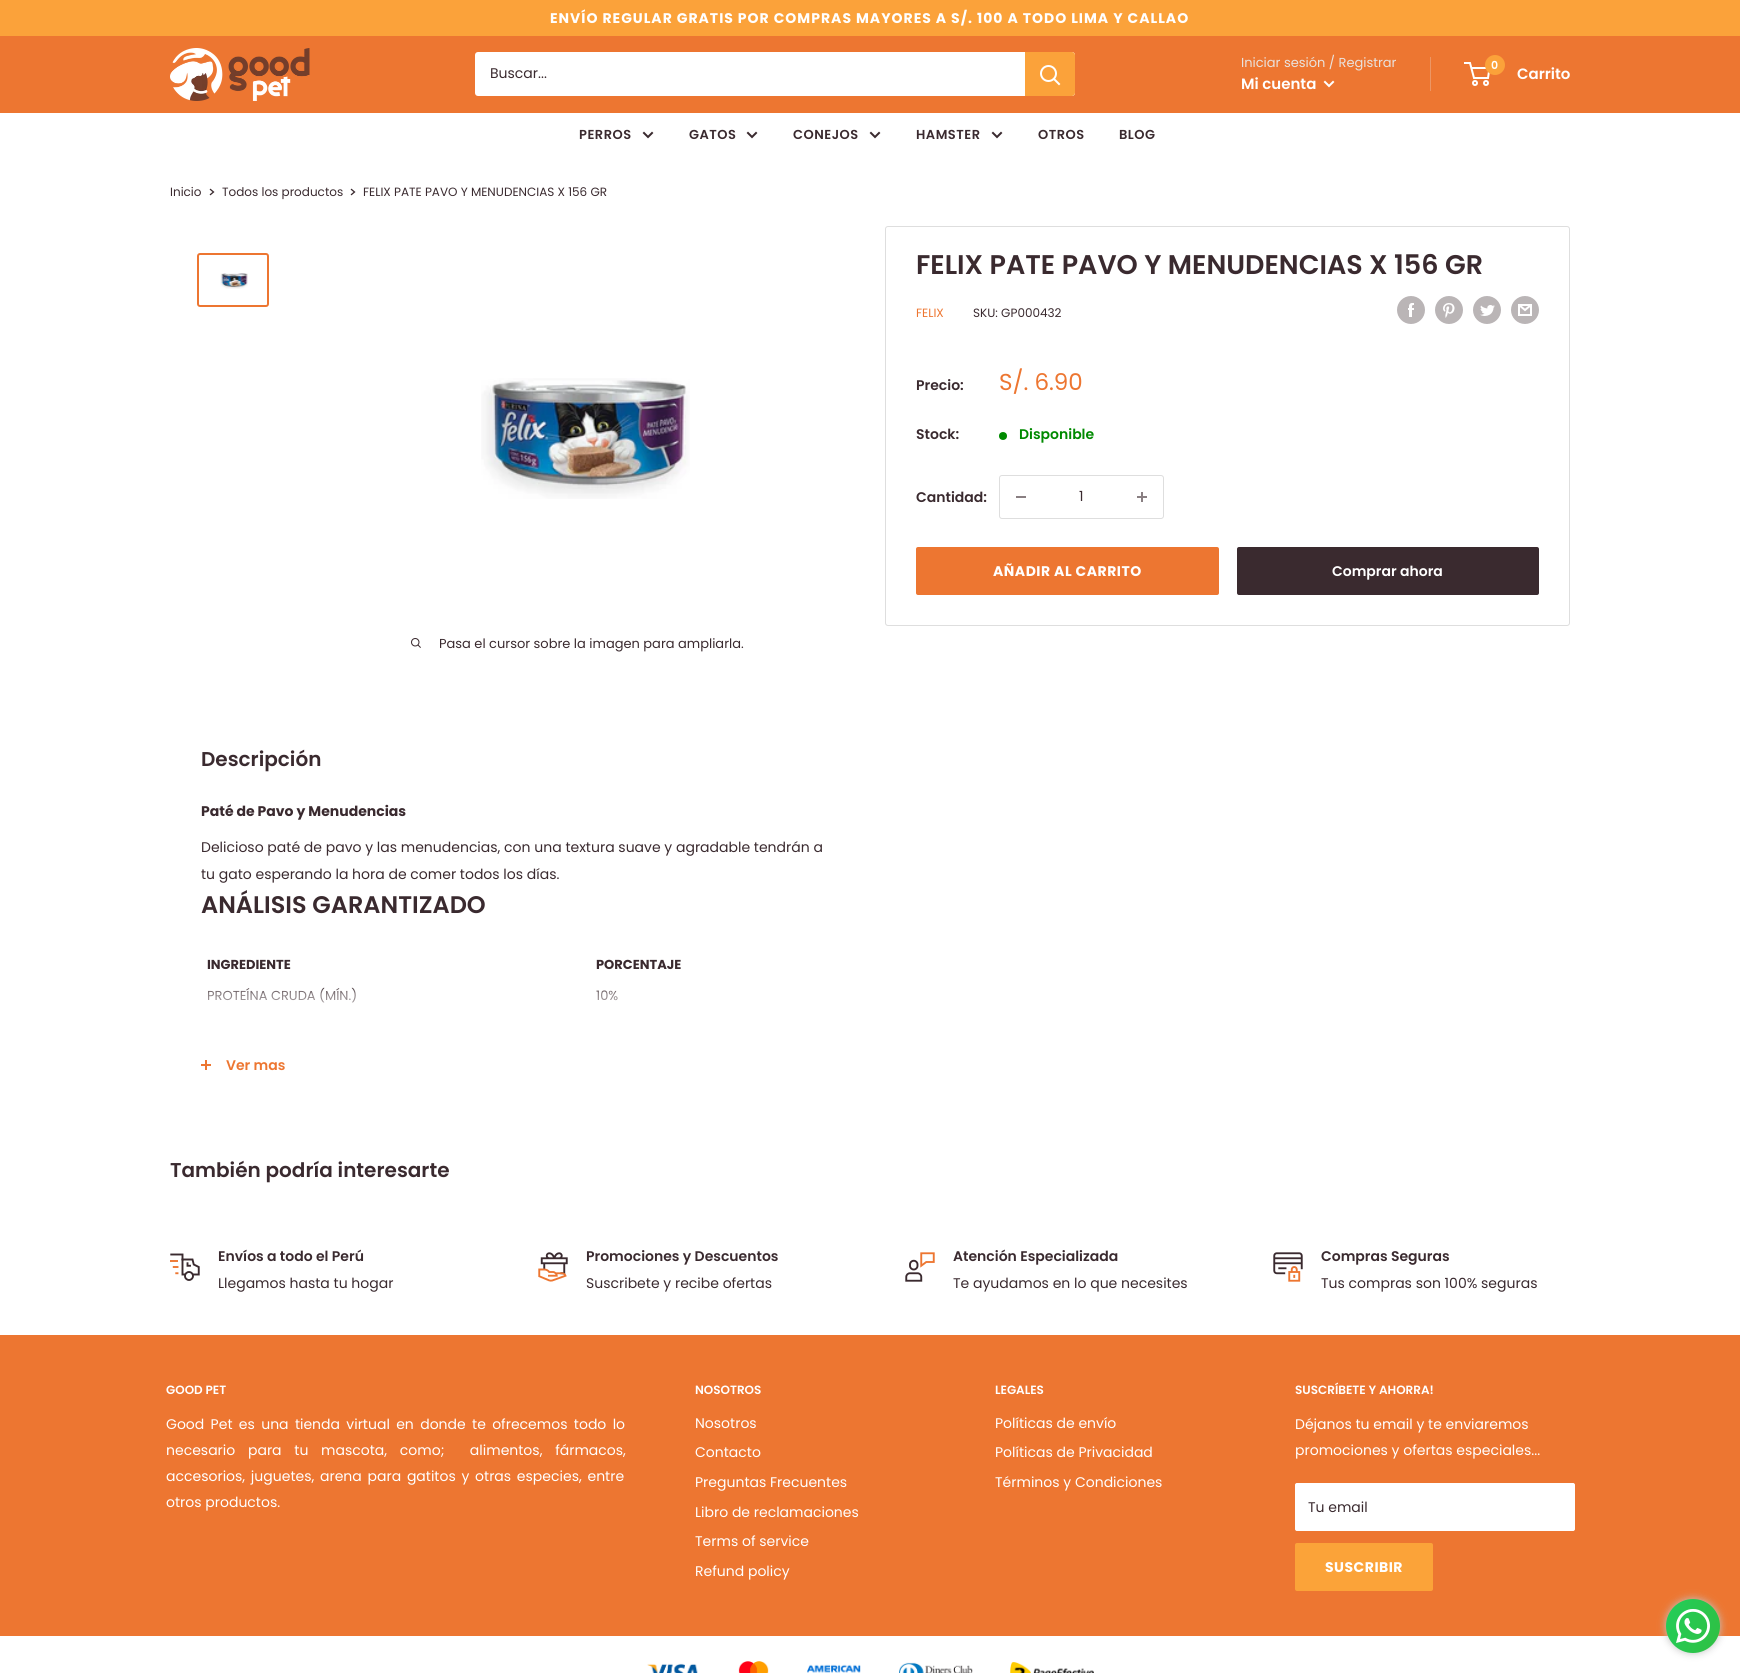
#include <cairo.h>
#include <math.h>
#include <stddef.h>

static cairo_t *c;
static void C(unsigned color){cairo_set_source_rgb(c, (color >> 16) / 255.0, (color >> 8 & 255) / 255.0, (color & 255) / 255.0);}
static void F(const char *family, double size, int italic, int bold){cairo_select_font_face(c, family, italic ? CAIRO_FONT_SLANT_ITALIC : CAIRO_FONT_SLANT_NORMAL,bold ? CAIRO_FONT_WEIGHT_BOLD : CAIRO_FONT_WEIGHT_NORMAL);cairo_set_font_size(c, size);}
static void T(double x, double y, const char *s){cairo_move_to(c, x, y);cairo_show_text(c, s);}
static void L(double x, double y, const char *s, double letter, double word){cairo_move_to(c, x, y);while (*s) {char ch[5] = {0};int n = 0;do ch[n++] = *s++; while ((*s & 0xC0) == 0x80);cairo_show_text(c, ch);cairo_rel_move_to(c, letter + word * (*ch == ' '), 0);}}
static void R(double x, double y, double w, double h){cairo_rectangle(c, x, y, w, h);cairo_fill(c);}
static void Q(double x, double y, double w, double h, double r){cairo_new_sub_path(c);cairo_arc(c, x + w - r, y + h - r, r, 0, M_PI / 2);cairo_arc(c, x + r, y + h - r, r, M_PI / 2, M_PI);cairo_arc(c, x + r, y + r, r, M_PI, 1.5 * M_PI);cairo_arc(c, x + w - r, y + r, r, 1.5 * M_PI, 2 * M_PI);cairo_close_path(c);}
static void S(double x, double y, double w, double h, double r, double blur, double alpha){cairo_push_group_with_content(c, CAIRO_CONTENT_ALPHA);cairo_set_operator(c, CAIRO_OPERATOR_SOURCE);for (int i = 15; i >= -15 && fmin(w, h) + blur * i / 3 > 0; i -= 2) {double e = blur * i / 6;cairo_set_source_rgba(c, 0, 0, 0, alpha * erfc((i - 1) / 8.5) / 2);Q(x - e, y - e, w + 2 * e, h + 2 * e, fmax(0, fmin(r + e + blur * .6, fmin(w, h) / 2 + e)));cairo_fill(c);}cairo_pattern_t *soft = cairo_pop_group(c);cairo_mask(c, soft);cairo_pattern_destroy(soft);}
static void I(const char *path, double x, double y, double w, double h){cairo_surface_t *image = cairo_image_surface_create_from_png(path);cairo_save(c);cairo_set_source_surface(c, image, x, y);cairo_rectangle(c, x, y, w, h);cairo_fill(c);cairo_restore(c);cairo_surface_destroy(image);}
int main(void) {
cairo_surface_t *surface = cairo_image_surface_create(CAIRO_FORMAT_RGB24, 1740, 1673);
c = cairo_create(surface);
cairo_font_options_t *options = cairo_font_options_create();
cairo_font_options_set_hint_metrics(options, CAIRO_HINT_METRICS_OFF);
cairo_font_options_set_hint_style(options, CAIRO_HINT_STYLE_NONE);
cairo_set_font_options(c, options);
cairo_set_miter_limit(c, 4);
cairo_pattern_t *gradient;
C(0xffffff);
cairo_paint(c);
C(0xfba23a);
R(0,0,1740,36);
F("Poppins",14,0,1);
C(0xffffff);
L(550,23,"ENVÍO REGULAR GRATIS POR COMPRAS MAYORES A S/. 100 A TODO LIMA Y CALLAO",1,0);
C(0xed7631);
R(0,36,1740,77);
I("1.png",170,48,140,53);
C(0xffffff);
Q(475,52,600,44,3);
cairo_fill(c);
F("Poppins",14,0,0);
C(0x3a2a2f);
T(490,78,"Buscar...");
C(0xfba23a);
cairo_new_path(c);
cairo_move_to(c,1025,52);
cairo_line_to(c,1072,52);
cairo_curve_to(c,1073.5,52,1075,53.5,1075,55);
cairo_line_to(c,1075,93);
cairo_curve_to(c,1075,94.5,1073.5,96,1072,96);
cairo_line_to(c,1025,96);
cairo_close_path(c);
cairo_fill(c);
cairo_new_path(c);
cairo_move_to(c,1059,84);
cairo_line_to(c,1054,79);
C(0xffffff);
cairo_set_line_cap(c,CAIRO_LINE_CAP_SQUARE);
cairo_stroke(c);
cairo_arc(c,1048.5,73.5,7.5,0,2 * M_PI);
cairo_set_line_cap(c,CAIRO_LINE_CAP_BUTT);
cairo_stroke(c);
F("Poppins",13,0,0);
C(0xe9e2dd);
T(1241,67,"Iniciar sesión / Registrar");
C(0xec9665);
R(1430,57,1,34);
F("Poppins SemiBold",15,0,0);
C(0xffffff);
T(1241,89,"Mi cuenta");
cairo_new_path(c);
cairo_move_to(c,1333,82);
cairo_line_to(c,1329,86);
cairo_line_to(c,1325,82);
cairo_set_line_cap(c,CAIRO_LINE_CAP_SQUARE);
cairo_stroke(c);
cairo_arc(c,1475,83,2,0,2 * M_PI);
cairo_set_line_cap(c,CAIRO_LINE_CAP_BUTT);
cairo_stroke(c);
cairo_arc(c,1486,83,2,0,2 * M_PI);
cairo_stroke(c);
cairo_new_path(c);
cairo_move_to(c,1471.5,68);
cairo_line_to(c,1489.5,68);
cairo_line_to(c,1488,78);
cairo_line_to(c,1474,78);
cairo_line_to(c,1470,63);
cairo_line_to(c,1464,63);
cairo_stroke(c);
C(0xfba23a);
cairo_arc(c,1495,65,10,0,2 * M_PI);
cairo_fill(c);
F("Poppins SemiBold",11,0,0);
C(0xffffff);
T(1491,69,"0");
F("Poppins SemiBold",15,0,0);
T(1517,79,"Carrito");
F("Poppins SemiBold",13,0,0);
C(0x3a2a2f);
L(579,139,"PERROS",.5,0);
cairo_new_path(c);
cairo_move_to(c,652,133);
cairo_line_to(c,648,137);
cairo_line_to(c,644,133);
cairo_set_line_cap(c,CAIRO_LINE_CAP_SQUARE);
cairo_stroke(c);
L(689,139,"GATOS",.5,0);
cairo_new_path(c);
cairo_move_to(c,756,133);
cairo_line_to(c,752,137);
cairo_line_to(c,748,133);
cairo_stroke(c);
L(793,139,"CONEJOS",.5,0);
cairo_new_path(c);
cairo_move_to(c,879,133);
cairo_line_to(c,875,137);
cairo_line_to(c,871,133);
cairo_stroke(c);
L(916,139,"HAMSTER",.5,0);
cairo_new_path(c);
cairo_move_to(c,1001,133);
cairo_line_to(c,997,137);
cairo_line_to(c,993,133);
cairo_stroke(c);
L(1038,139,"OTROS",.5,0);
L(1119,139,"BLOG",.5,0);
F("Poppins",12,0,0);
T(170,196,"Inicio");
cairo_new_path(c);
cairo_move_to(c,210.5,189.5);
cairo_line_to(c,213.5,192);
cairo_line_to(c,210.5,194.5);
cairo_set_line_width(c,1.3);
cairo_stroke(c);
T(222,196,"Todos los productos");
cairo_new_path(c);
cairo_move_to(c,351.5,189.5);
cairo_line_to(c,354.5,192);
cairo_line_to(c,351.5,194.5);
cairo_stroke(c);
T(363,196,"FELIX PATE PAVO Y MENUDENCIAS X 156 GR");
Q(885.5,226.5,684,399,2.5);
C(0xdedede);
cairo_set_line_width(c,1);
cairo_set_line_cap(c,CAIRO_LINE_CAP_BUTT);
cairo_stroke(c);
F("Poppins SemiBold",27,0,0);
C(0x3a2a2f);
T(916,274,"FELIX PATE PAVO Y MENUDENCIAS X 156 GR");
F("Poppins",12,0,0);
C(0xed7631);
T(916,317,"FELIX");
C(0x3a2a2f);
T(973,317,"SKU: GP000432");
I("2.png",1397,296,28,28);
I("3.png",1435,296,28,28);
I("4.png",1473,296,28,28);
I("5.png",1511,296,28,28);
F("Poppins SemiBold",14,0,0);
T(916,390,"Precio:");
F("Poppins",23,0,0);
C(0xed7631);
T(999,390,"S/. 6.90");
F("Poppins SemiBold",14,0,0);
C(0x3a2a2f);
T(916,439,"Stock:");
C(0x008a00);
cairo_new_path(c);
cairo_arc(c,1003,436,4,0,2 * M_PI);
cairo_fill(c);
T(1019,439,"Disponible");
C(0x3a2a2f);
T(916,502,"Cantidad:");
Q(999.5,475.5,164,43,2.5);
C(0xdedede);
cairo_stroke(c);
C(0x897f82);
R(1016,496,10,2);
F("Poppins",14,0,0);
C(0x3a2a2f);
T(1079,501,"1");
I("6.png",1137,492,10,10);
C(0xed7631);
Q(916,547,303,48,2);
cairo_fill(c);
F("Poppins",14,0,1);
C(0xffffff);
L(993,576,"AÑADIR AL CARRITO",.5,0);
C(0x3a2a2f);
Q(1237,547,302,48,2);
cairo_fill(c);
F("Poppins SemiBold",14,0,0);
C(0xffffff);
T(1332,576,"Comprar ahora");
Q(198,254,70,52,2);
C(0xed7631);
cairo_set_line_width(c,2);
cairo_stroke(c);
I("7.png",220,273,28,16);
I("8.png",481,378,209,121);
I("9.png",411,638,10,10);
F("Poppins",13,0,0);
C(0x3a2a2f);
T(439,648,"Pasa el cursor sobre la imagen para ampliarla.");
F("Poppins SemiBold",20,0,0);
T(201,766,"Descripción");
F("Poppins",14,0,1);
T(201,816,"Paté de Pavo y Menudencias");
F("Poppins",14,0,0);
T(201,852,"Delicioso paté de pavo y las menudencias, con una textura suave y agradable tendrán a");
T(201,879,"tu gato esperando la hora de comer todos los días.");
F("Poppins SemiBold",24,0,0);
T(201,913,"ANÁLISIS GARANTIZADO");
F("Poppins",13,0,1);
T(207,969,"INGREDIENTE");
T(596,969,"PORCENTAJE");
F("Poppins",13,0,0);
T(207,1000,"PROTEÍNA CRUDA (MÍN.)");
T(596,1000,"10%");
gradient = cairo_pattern_create_linear(513,986,513,1036);
cairo_pattern_add_color_stop_rgba(gradient,0,1,1,1,0);
cairo_pattern_add_color_stop_rgba(gradient,.15,1,1,1,.4);
cairo_pattern_add_color_stop_rgba(gradient,1,1,1,1,1);
cairo_set_source(c,gradient);
cairo_pattern_destroy(gradient);
R(208,988,410,15);
C(0xed7631);
R(205,1060,2,10);
R(201,1064,10,2);
F("Poppins SemiBold",14,0,0);
T(226,1070,"Ver mas");
F("Poppins SemiBold",20,0,0);
C(0x3a2a2f);
T(170,1177,"También podría interesarte");
I("10.png",170,1253,30,28);
F("Poppins SemiBold",14,0,0);
T(218,1261,"Envíos a todo el Perú");
F("Poppins",14,0,0);
T(218,1288,"Llegamos hasta tu hogar");
I("11.png",538,1252,30,30);
F("Poppins SemiBold",14,0,0);
T(586,1261,"Promociones y Descuentos");
F("Poppins",14,0,0);
T(586,1288,"Suscribete y recibe ofertas");
I("12.png",905,1252,30,30);
F("Poppins SemiBold",14,0,0);
T(953,1261,"Atención Especializada");
F("Poppins",14,0,0);
T(953,1288,"Te ayudamos en lo que necesites");
I("13.png",1273,1252,30,30);
F("Poppins SemiBold",14,0,0);
T(1321,1261,"Compras Seguras");
F("Poppins",14,0,0);
T(1321,1288,"Tus compras son 100% seguras");
C(0xed7631);
R(0,1335,1740,301);
F("Poppins SemiBold",12,0,0);
C(0xffffff);
T(166,1394,"GOOD PET");
F("Poppins",14,0,0);
L(166,1429,"Good Pet es una tienda virtual en donde te ofrecemos todo lo",0,2.6);
L(166,1455,"necesario para tu mascota, como;  alimentos, fármacos,",0,9);
L(166,1481,"accesorios, juguetes, arena para gatitos y otras especies, entre",0,2);
T(166,1507,"otros productos.");
F("Poppins SemiBold",12,0,0);
T(695,1394,"NOSOTROS");
F("Poppins",14,0,0);
T(695,1428,"Nosotros");
T(695,1457,"Contacto");
T(695,1487,"Preguntas Frecuentes");
T(695,1517,"Libro de reclamaciones");
T(695,1546,"Terms of service");
T(695,1576,"Refund policy");
F("Poppins SemiBold",12,0,0);
T(995,1394,"LEGALES");
F("Poppins",14,0,0);
T(995,1428,"Políticas de envío");
T(995,1457,"Políticas de Privacidad");
T(995,1487,"Términos y Condiciones");
F("Poppins SemiBold",12,0,0);
T(1295,1394,"SUSCRÍBETE Y AHORRA!");
F("Poppins",14,0,0);
T(1295,1429,"Déjanos tu email y te enviaremos");
T(1295,1455,"promociones y ofertas especiales...");
Q(1295.5,1483.5,279,47,1.5);
cairo_fill_preserve(c);
cairo_set_line_width(c,1);
cairo_stroke(c);
C(0x3a2a2f);
T(1308,1512,"Tu email");
C(0xfba339);
Q(1295,1543,138,48,2);
cairo_fill(c);
F("Poppins",14,0,1);
C(0xffffff);
L(1325,1572,"SUSCRIBIR",.5,0);
I("14.png",647,1663,51,10);
I("15.png",738,1661,31,12);
I("16.png",807,1664,54,9);
I("17.png",899,1662,74,11);
I("18.png",1010,1662,84,11);
C(0xc2c2c2);
S(1666,1599,54,54,27,4,1);
gradient = cairo_pattern_create_linear(1660,1613,1726,1639);
cairo_pattern_add_color_stop_rgba(gradient,0,0.133,0.808,0.353,1);
cairo_pattern_add_color_stop_rgba(gradient,0,0.133,0.808,0.353,1);
cairo_pattern_add_color_stop_rgba(gradient,1,0.188,0.749,0.259,1);
cairo_set_source(c,gradient);
cairo_pattern_destroy(gradient);
cairo_arc(c,1693,1626,27,0,2 * M_PI);
cairo_fill(c);
I("19.png",1676,1609,34,34);
cairo_surface_write_to_png(surface, "o.png");
cairo_font_options_destroy(options);
cairo_destroy(c);
cairo_surface_destroy(surface);
return 0;
}
